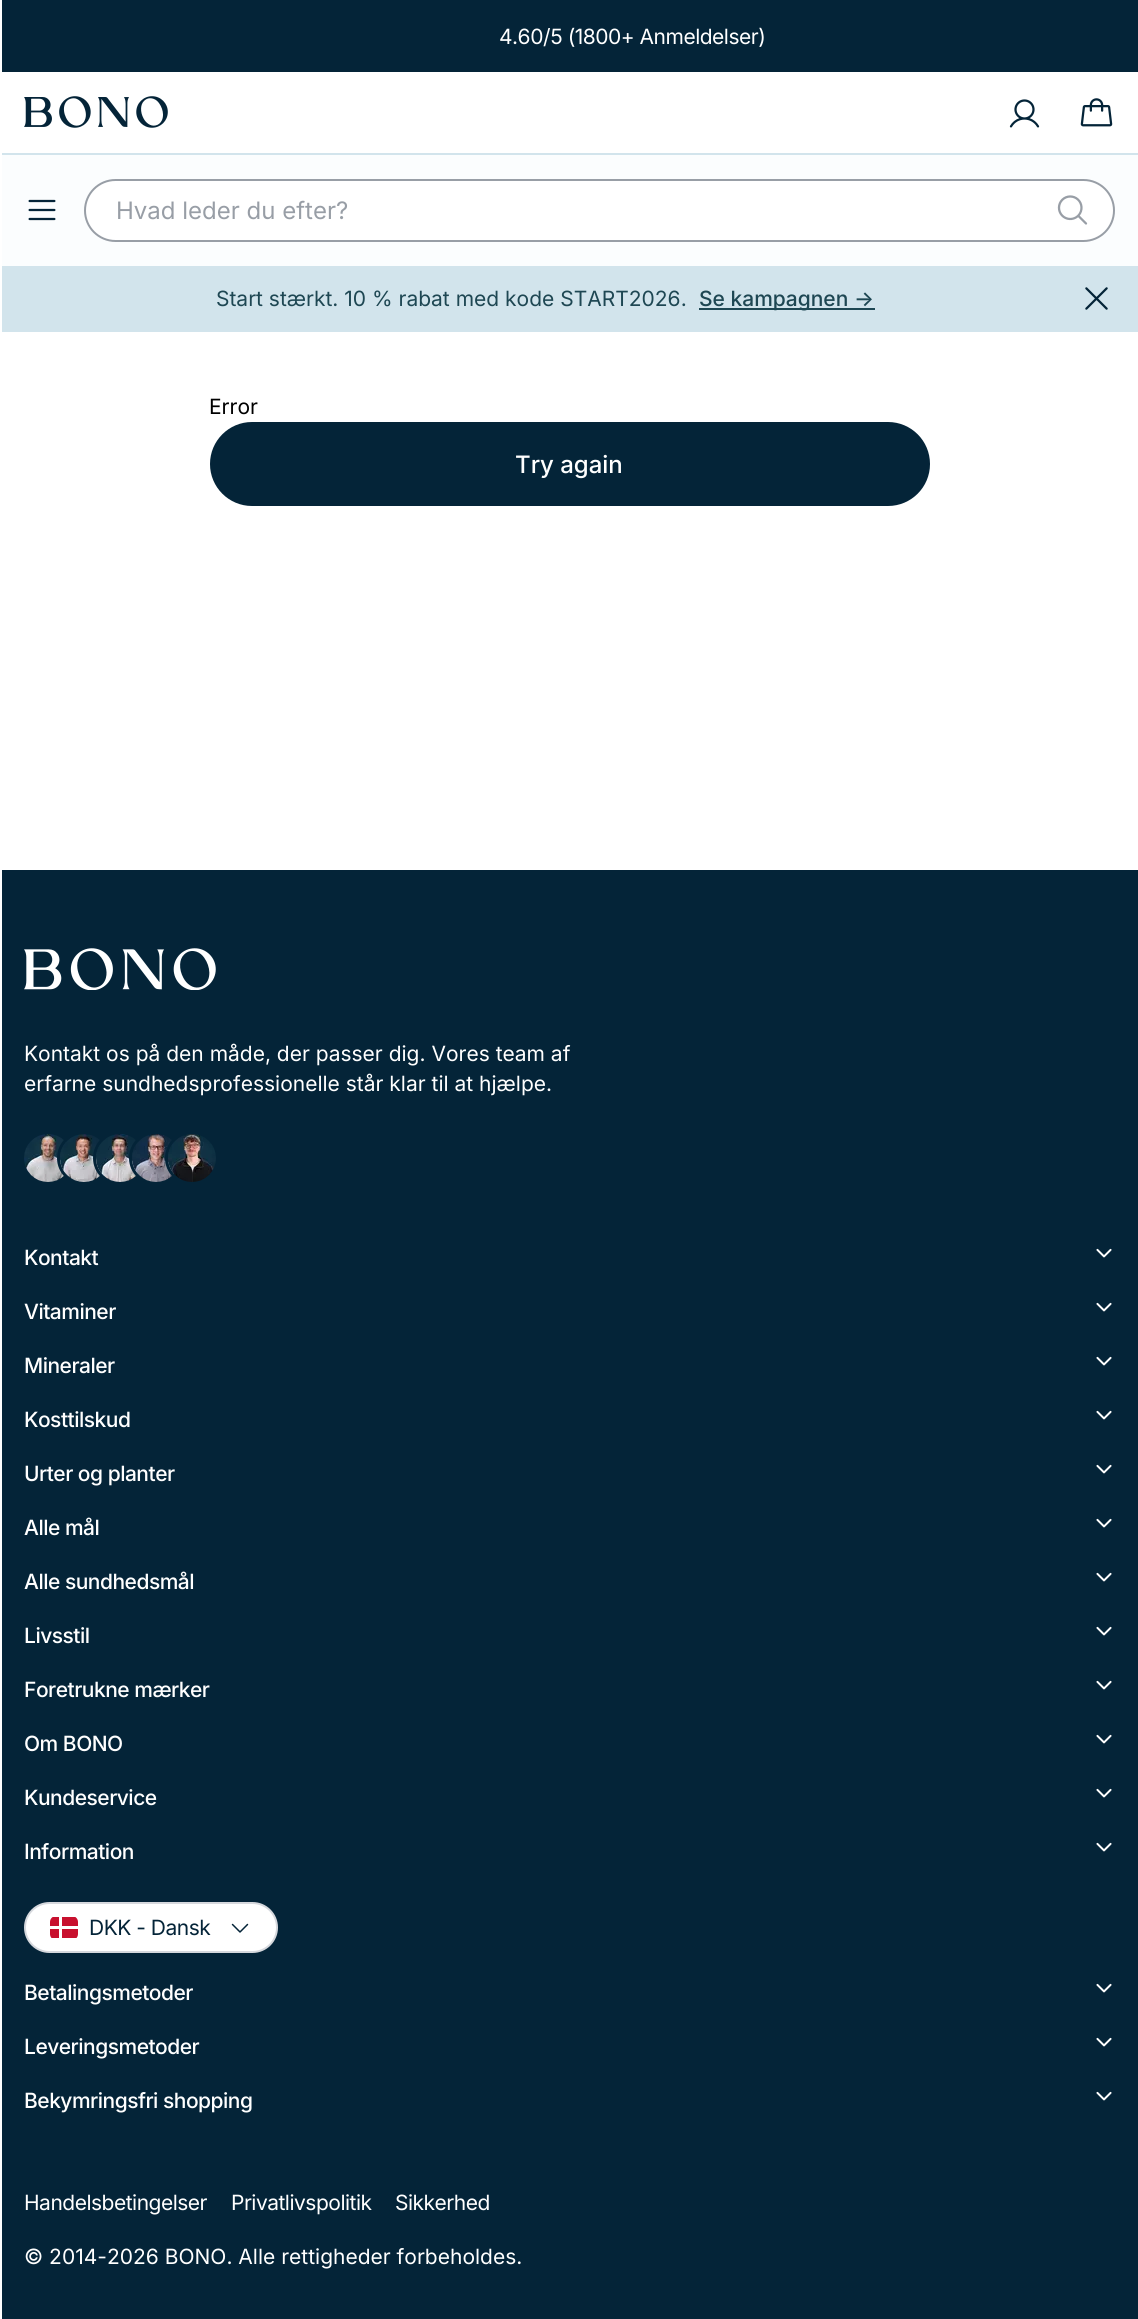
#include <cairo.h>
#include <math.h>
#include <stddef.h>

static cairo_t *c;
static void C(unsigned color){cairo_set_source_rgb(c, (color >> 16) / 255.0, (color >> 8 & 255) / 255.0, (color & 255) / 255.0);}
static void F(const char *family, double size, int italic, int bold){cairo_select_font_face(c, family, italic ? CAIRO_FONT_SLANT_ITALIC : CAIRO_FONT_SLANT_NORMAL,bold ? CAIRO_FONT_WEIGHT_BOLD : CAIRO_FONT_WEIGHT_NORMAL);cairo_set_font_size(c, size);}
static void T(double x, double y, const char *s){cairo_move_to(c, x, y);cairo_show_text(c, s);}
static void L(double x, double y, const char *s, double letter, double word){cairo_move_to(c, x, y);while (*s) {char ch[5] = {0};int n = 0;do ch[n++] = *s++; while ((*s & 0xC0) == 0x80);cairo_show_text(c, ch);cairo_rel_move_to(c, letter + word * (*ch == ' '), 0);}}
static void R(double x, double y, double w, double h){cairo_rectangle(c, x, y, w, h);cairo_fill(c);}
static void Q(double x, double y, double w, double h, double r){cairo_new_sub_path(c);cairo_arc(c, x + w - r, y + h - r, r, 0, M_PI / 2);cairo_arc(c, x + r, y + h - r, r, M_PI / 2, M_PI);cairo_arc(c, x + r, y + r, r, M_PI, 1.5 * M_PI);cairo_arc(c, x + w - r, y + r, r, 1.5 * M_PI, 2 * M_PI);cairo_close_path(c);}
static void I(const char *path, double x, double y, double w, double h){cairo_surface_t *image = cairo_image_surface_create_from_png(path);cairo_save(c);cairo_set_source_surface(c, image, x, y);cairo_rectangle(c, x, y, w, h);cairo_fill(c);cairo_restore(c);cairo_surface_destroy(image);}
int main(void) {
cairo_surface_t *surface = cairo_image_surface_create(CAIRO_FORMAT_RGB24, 1138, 2319);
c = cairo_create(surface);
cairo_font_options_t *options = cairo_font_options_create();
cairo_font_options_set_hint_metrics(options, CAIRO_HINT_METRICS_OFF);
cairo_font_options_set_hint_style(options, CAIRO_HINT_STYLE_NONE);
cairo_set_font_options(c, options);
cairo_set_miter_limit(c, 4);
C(0xffffff);
cairo_paint(c);
C(0x042438);
R(2,0,1136,72);
F("Inter",21,0,0);
C(0xffffff);
L(499,44,"4.60/5 (1800+ Anmeldelser)",-.5,0);
C(0xd2e4ec);
R(0,153,1138,2);
I("1.png",24,96,144,32);
I("2.png",1009,99,31,29);
I("3.png",1080,98,33,29);
C(0xffffff);
R(0,153,2,2);
C(0xfbfdfe);
R(2,155,1136,111);
I("4.png",28,199,28,22);
C(0xffffff);
Q(85,180,1029,61,30.5);
cairo_fill_preserve(c);
C(0x989ea6);
cairo_stroke(c);
F("Inter",24,0,0);
T(116,219,"Hvad leder du efter?");
I("5.png",1057,195,31,30);
C(0xd2e4ec);
R(2,266,1136,66);
F("Inter",21,0,0);
C(0x1e4753);
T(216,306,"Start stærkt. 10 % rabat med kode START2026.");
R(699,308,176,2);
F("Inter Medium",21,0,0);
T(699,306,"Se kampagnen →");
I("6.png",1085,287,23,23);
F("Inter",21,0,0);
C(0x000000);
T(209,414,"Error");
C(0x042438);
Q(210,422,720,84,42);
cairo_fill(c);
F("Inter Medium",24,0,0);
C(0xffffff);
T(515,473,"Try again");
C(0x042438);
R(2,870,1136,1449);
I("7.png",24,948,192,42);
F("Inter",21,0,0);
C(0xffffff);
T(24,1061,"Kontakt os på den måde, der passer dig. Vores team af");
T(24,1091,"erfarne sundhedsprofessionelle står klar til at hjælpe.");
I("8.png",24,1134,43,48);
cairo_save(c);
cairo_rectangle(c,24,1134,1091,48);
cairo_clip(c);
cairo_arc(c,84,1158,25.5,0,2 * M_PI);
C(0x042438);
cairo_set_line_width(c,3);
cairo_stroke(c);
cairo_restore(c);
I("9.png",60,1134,43,48);
cairo_save(c);
cairo_rectangle(c,24,1134,1091,48);
cairo_clip(c);
cairo_arc(c,120,1158,25.5,0,2 * M_PI);
C(0x042438);
cairo_set_line_width(c,3);
cairo_stroke(c);
cairo_restore(c);
I("10.png",96,1134,43,48);
cairo_save(c);
cairo_rectangle(c,24,1134,1091,48);
cairo_clip(c);
cairo_arc(c,156,1158,25.5,0,2 * M_PI);
C(0x042438);
cairo_set_line_width(c,3);
cairo_stroke(c);
cairo_restore(c);
I("11.png",132,1134,43,48);
cairo_save(c);
cairo_rectangle(c,24,1134,1091,48);
cairo_clip(c);
cairo_arc(c,192,1158,25.5,0,2 * M_PI);
C(0x042438);
cairo_set_line_width(c,3);
cairo_stroke(c);
cairo_restore(c);
I("12.png",168,1134,48,48);
F("Inter Medium",21,0,0);
L(24,1265,"Kontakt",-.5,0);
I("13.png",1096,1248,16,10);
L(24,1319,"Vitaminer",-.5,0);
I("13.png",1096,1302,16,10);
L(24,1373,"Mineraler",-.5,0);
I("13.png",1096,1356,16,10);
L(24,1427,"Kosttilskud",-.5,0);
I("13.png",1096,1410,16,10);
L(24,1481,"Urter og planter",-.5,0);
I("13.png",1096,1464,16,10);
L(24,1535,"Alle mål",-.5,0);
I("13.png",1096,1518,16,10);
L(24,1589,"Alle sundhedsmål",-.5,0);
I("13.png",1096,1572,16,10);
L(24,1643,"Livsstil",-.5,0);
I("13.png",1096,1626,16,10);
L(24,1697,"Foretrukne mærker",-.5,0);
I("13.png",1096,1680,16,10);
L(24,1751,"Om BONO",-.5,0);
I("13.png",1096,1734,16,10);
L(24,1805,"Kundeservice",-.5,0);
I("13.png",1096,1788,16,10);
L(24,1859,"Information",-.5,0);
I("13.png",1096,1842,16,10);
Q(25,1903,252,49,24.5);
cairo_fill_preserve(c);
C(0xd6d8dd);
cairo_stroke(c);
cairo_save(c);
Q(50,1916,28,24,6);
cairo_clip(c);
C(0xc8102e);
R(50,1917,28,21);
cairo_restore(c);
C(0xffffff);
R(59,1917,3,21);
R(50,1926,28,3);
F("Inter",21,0,0);
C(0x042438);
L(89,1935,"DKK - Dansk",-.5,0);
I("14.png",231,1923,18,10);
F("Inter Medium",21,0,0);
C(0xffffff);
L(24,2000,"Betalingsmetoder",-.5,0);
I("13.png",1096,1983,16,10);
L(24,2054,"Leveringsmetoder",-.5,0);
I("13.png",1096,2037,16,10);
L(24,2108,"Bekymringsfri shopping",-.5,0);
I("13.png",1096,2091,16,10);
F("Inter",21,0,0);
L(24,2210,"Handelsbetingelser",-.5,0);
L(231,2210,"Privatlivspolitik",-.5,0);
L(395,2210,"Sikkerhed",-.5,0);
T(24,2264,"© 2014-2026 BONO. Alle rettigheder forbeholdes.");
cairo_surface_write_to_png(surface, "o.png");
cairo_font_options_destroy(options);
cairo_destroy(c);
cairo_surface_destroy(surface);
return 0;
}
